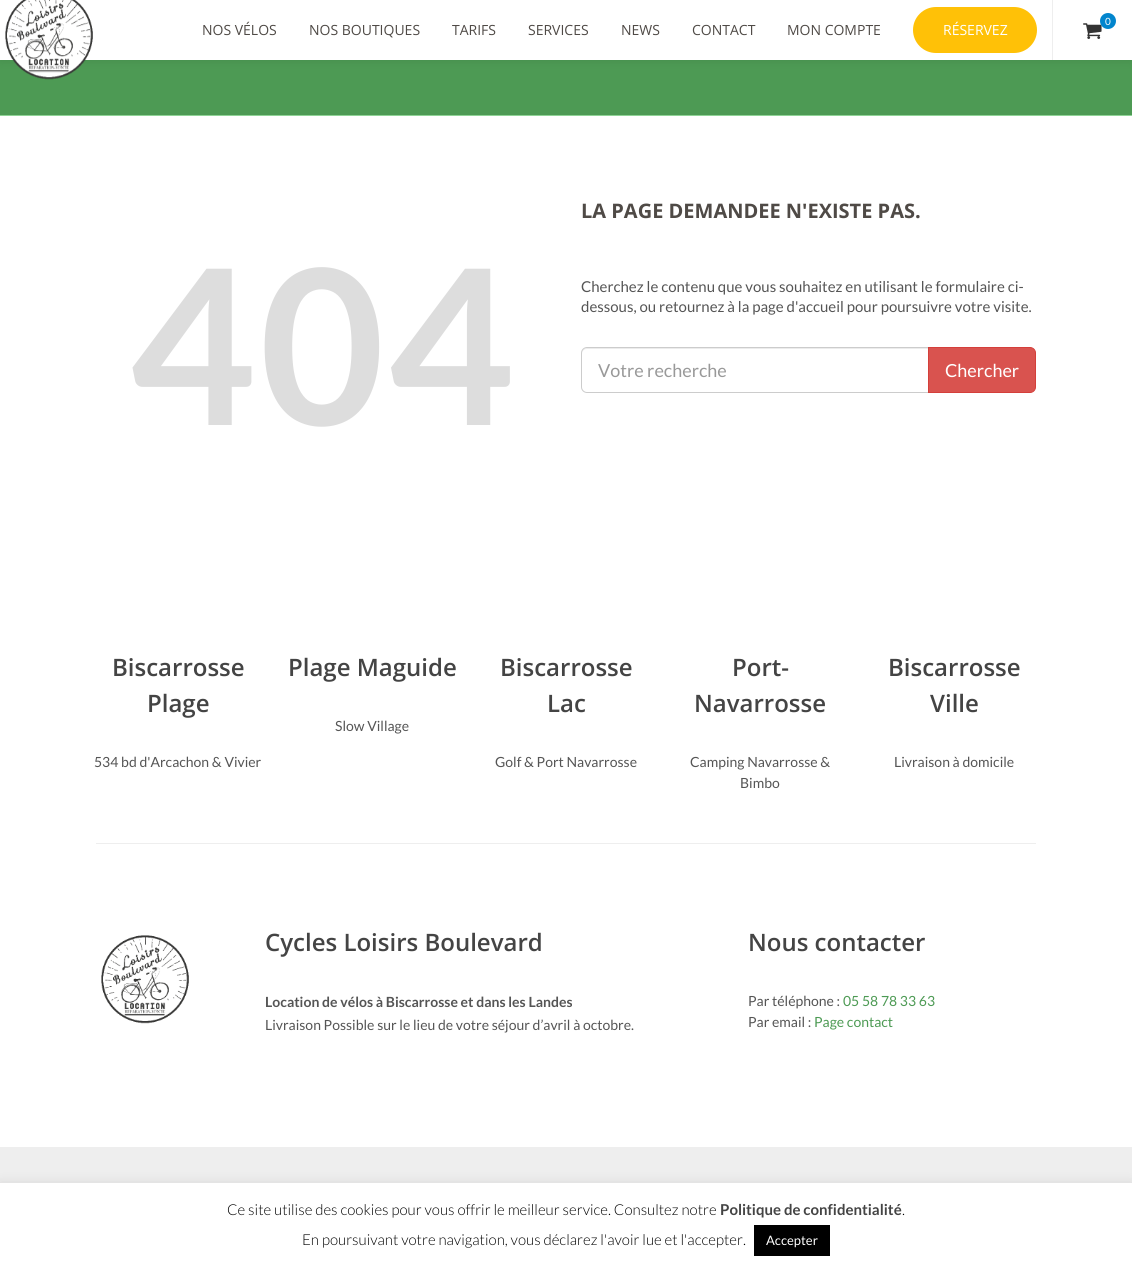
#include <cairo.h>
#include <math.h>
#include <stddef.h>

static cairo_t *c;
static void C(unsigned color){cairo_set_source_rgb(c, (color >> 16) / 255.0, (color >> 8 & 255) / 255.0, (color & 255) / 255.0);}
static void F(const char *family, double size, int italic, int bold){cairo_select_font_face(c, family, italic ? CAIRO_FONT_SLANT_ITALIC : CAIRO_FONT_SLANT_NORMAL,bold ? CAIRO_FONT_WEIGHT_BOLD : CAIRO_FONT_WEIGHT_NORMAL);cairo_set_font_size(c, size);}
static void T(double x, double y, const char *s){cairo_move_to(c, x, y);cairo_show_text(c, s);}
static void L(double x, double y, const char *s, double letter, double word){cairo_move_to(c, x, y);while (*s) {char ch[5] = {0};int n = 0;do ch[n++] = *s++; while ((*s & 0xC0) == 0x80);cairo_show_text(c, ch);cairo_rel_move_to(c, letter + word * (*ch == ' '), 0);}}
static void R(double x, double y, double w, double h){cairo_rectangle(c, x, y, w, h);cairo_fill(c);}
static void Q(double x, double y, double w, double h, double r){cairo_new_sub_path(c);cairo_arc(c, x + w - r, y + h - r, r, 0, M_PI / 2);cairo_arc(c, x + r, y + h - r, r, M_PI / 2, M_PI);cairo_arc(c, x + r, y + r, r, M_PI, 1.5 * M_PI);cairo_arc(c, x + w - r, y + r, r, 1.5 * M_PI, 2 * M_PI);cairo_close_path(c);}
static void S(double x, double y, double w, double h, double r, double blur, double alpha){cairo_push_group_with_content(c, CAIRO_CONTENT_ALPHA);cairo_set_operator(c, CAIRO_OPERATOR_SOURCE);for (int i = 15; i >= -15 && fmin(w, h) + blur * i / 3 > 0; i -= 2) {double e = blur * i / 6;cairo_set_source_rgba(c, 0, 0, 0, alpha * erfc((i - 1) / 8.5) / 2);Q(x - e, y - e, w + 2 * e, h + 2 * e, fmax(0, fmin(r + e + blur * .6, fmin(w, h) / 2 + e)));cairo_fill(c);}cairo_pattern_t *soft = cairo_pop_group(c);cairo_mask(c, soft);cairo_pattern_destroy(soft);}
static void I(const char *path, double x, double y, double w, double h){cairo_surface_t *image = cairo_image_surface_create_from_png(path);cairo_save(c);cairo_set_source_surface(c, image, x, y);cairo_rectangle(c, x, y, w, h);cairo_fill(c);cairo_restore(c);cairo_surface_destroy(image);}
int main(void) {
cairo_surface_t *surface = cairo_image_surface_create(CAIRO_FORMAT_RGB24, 1132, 1268);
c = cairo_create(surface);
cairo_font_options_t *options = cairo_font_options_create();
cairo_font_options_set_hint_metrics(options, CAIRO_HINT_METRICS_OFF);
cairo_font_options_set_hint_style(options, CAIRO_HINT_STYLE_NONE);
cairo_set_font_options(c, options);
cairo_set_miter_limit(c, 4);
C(0xffffff);
cairo_paint(c);
C(0x4d9a54);
R(0,60,1132,55);
C(0x000000);
S(0,0,1132,60,0,5,.1);
C(0xffffff);
R(0,0,1132,60);
I("1.png",5,0,88,80);
C(0xeeeeee);
R(1052,0,1,60);
F("Open Sans",14,0,0);
C(0x4f4a46);
T(202,35,"NOS VÉLOS");
T(309,35,"NOS BOUTIQUES");
T(452,35,"TARIFS");
T(528,35,"SERVICES");
T(621,35,"NEWS");
T(692,35,"CONTACT");
T(787,35,"MON COMPTE");
C(0xffc107);
Q(913,7,124,46,23);
cairo_fill(c);
C(0xffffff);
T(943,35,"RÉSERVEZ");
I("2.png",1083,23,19,16);
C(0x0285cd);
cairo_arc(c,1108,21,8,0,2 * M_PI);
cairo_fill(c);
F("Lato",10,0,0);
C(0xffffff);
T(1105,25,"0");
C(0x8fd496);
R(0,115,1132,1);
F("Lato",216,0,1);
C(0xdddddd);
L(130,425,"404",4,0);
F("Open Sans",20,0,1);
C(0x4f4a46);
T(581,218,"LA PAGE DEMANDEE N'EXISTE PAS.");
F("Lato",15,0,0);
C(0x555555);
T(581,292,"Cherchez le contenu que vous souhaitez en utilisant le formulaire ci-");
T(581,312,"dessous, ou retournez à la page d'accueil pour poursuivre votre visite.");
C(0xececec);
cairo_new_path(c);
cairo_move_to(c,587,349);
cairo_line_to(c,928,349);
cairo_line_to(c,928,348);
cairo_line_to(c,587,348);
cairo_curve_to(c,584,348,582,350,582,353);
cairo_line_to(c,582,354);
cairo_curve_to(c,582,351,584,349,587,349);
cairo_close_path(c);
cairo_fill(c);
cairo_new_path(c);
cairo_move_to(c,587,347.5);
cairo_line_to(c,928.5,347.5);
cairo_line_to(c,928.5,392.5);
cairo_line_to(c,587,392.5);
cairo_curve_to(c,584,392.5,581.5,390,581.5,387);
cairo_line_to(c,581.5,353);
cairo_curve_to(c,581.5,350,584,347.5,587,347.5);
cairo_close_path(c);
C(0xcccccc);
cairo_set_line_width(c,1);
cairo_stroke(c);
F("Lato",18,0,0);
C(0x999999);
T(598,377,"Votre recherche");
C(0xd9534f);
cairo_new_path(c);
cairo_move_to(c,928.5,347.5);
cairo_line_to(c,1030,347.5);
cairo_curve_to(c,1033,347.5,1035.5,350,1035.5,353);
cairo_line_to(c,1035.5,387);
cairo_curve_to(c,1035.5,390,1033,392.5,1030,392.5);
cairo_line_to(c,928.5,392.5);
cairo_close_path(c);
cairo_fill_preserve(c);
C(0xd43f3a);
cairo_stroke(c);
C(0xffffff);
T(945,377,"Chercher");
F("Open Sans SemiBold",24,0,0);
C(0x444444);
T(112,676,"Biscarrosse");
T(147,712,"Plage");
F("Lato",14,0,0);
C(0x555555);
T(94,767,"534 bd d'Arcachon & Vivier");
F("Open Sans SemiBold",24,0,0);
C(0x444444);
T(288,676,"Plage Maguide");
F("Lato",14,0,0);
C(0x555555);
T(335,731,"Slow Village");
F("Open Sans SemiBold",24,0,0);
C(0x444444);
T(500,676,"Biscarrosse");
T(547,712,"Lac");
F("Lato",14,0,0);
C(0x555555);
T(495,767,"Golf & Port Navarrosse");
F("Open Sans SemiBold",24,0,0);
C(0x444444);
T(732,676,"Port-");
T(694,712,"Navarrosse");
F("Lato",14,0,0);
C(0x555555);
T(690,767,"Camping Navarrosse &");
T(740,788,"Bimbo");
F("Open Sans SemiBold",24,0,0);
C(0x444444);
T(888,676,"Biscarrosse");
T(930,712,"Ville");
F("Lato",14,0,0);
C(0x555555);
T(894,767,"Livraison à domicile");
C(0xeeeeee);
R(96,843,940,1);
I("3.png",101,935,88,89);
F("Open Sans SemiBold",24,0,0);
C(0x444444);
T(265,951,"Cycles Loisirs Boulevard");
F("Lato",14,0,1);
C(0x555555);
T(265,1007,"Location de vélos à Biscarrosse et dans les Landes");
F("Lato",14,0,0);
T(265,1030,"Livraison Possible sur le lieu de votre séjour d’avril à octobre.");
F("Open Sans SemiBold",24,0,0);
C(0x444444);
T(748,951,"Nous contacter");
F("Lato",14,0,0);
C(0x555555);
T(748,1006,"Par téléphone :");
C(0x4d9a54);
T(843,1006,"05 58 78 33 63");
C(0x555555);
T(748,1027,"Par email :");
C(0x4d9a54);
T(814,1027,"Page contact");
C(0xeeeeee);
R(0,1147,1132,36);
C(0xacabab);
S(0,1182,1132,85,0,5,.3);
C(0xffffff);
R(0,1183,1132,85);
F("Lato Light",15,0,0);
C(0x000000);
T(227,1215,"Ce site utilise des cookies pour vous offrir le meilleur service. Consultez notre");
F("Lato",15,0,1);
C(0x444444);
T(720,1215,"Politique de confidentialité");
F("Lato Light",15,0,0);
C(0x000000);
T(902,1215,".");
T(302,1245,"En poursuivant votre navigation, vous déclarez l'avoir lue et l'accepter.");
R(754,1225,76,31);
F("Lato",13,0,0);
C(0xffffff);
T(766,1245,"Accepter");
cairo_surface_write_to_png(surface, "o.png");
cairo_font_options_destroy(options);
cairo_destroy(c);
cairo_surface_destroy(surface);
return 0;
}
